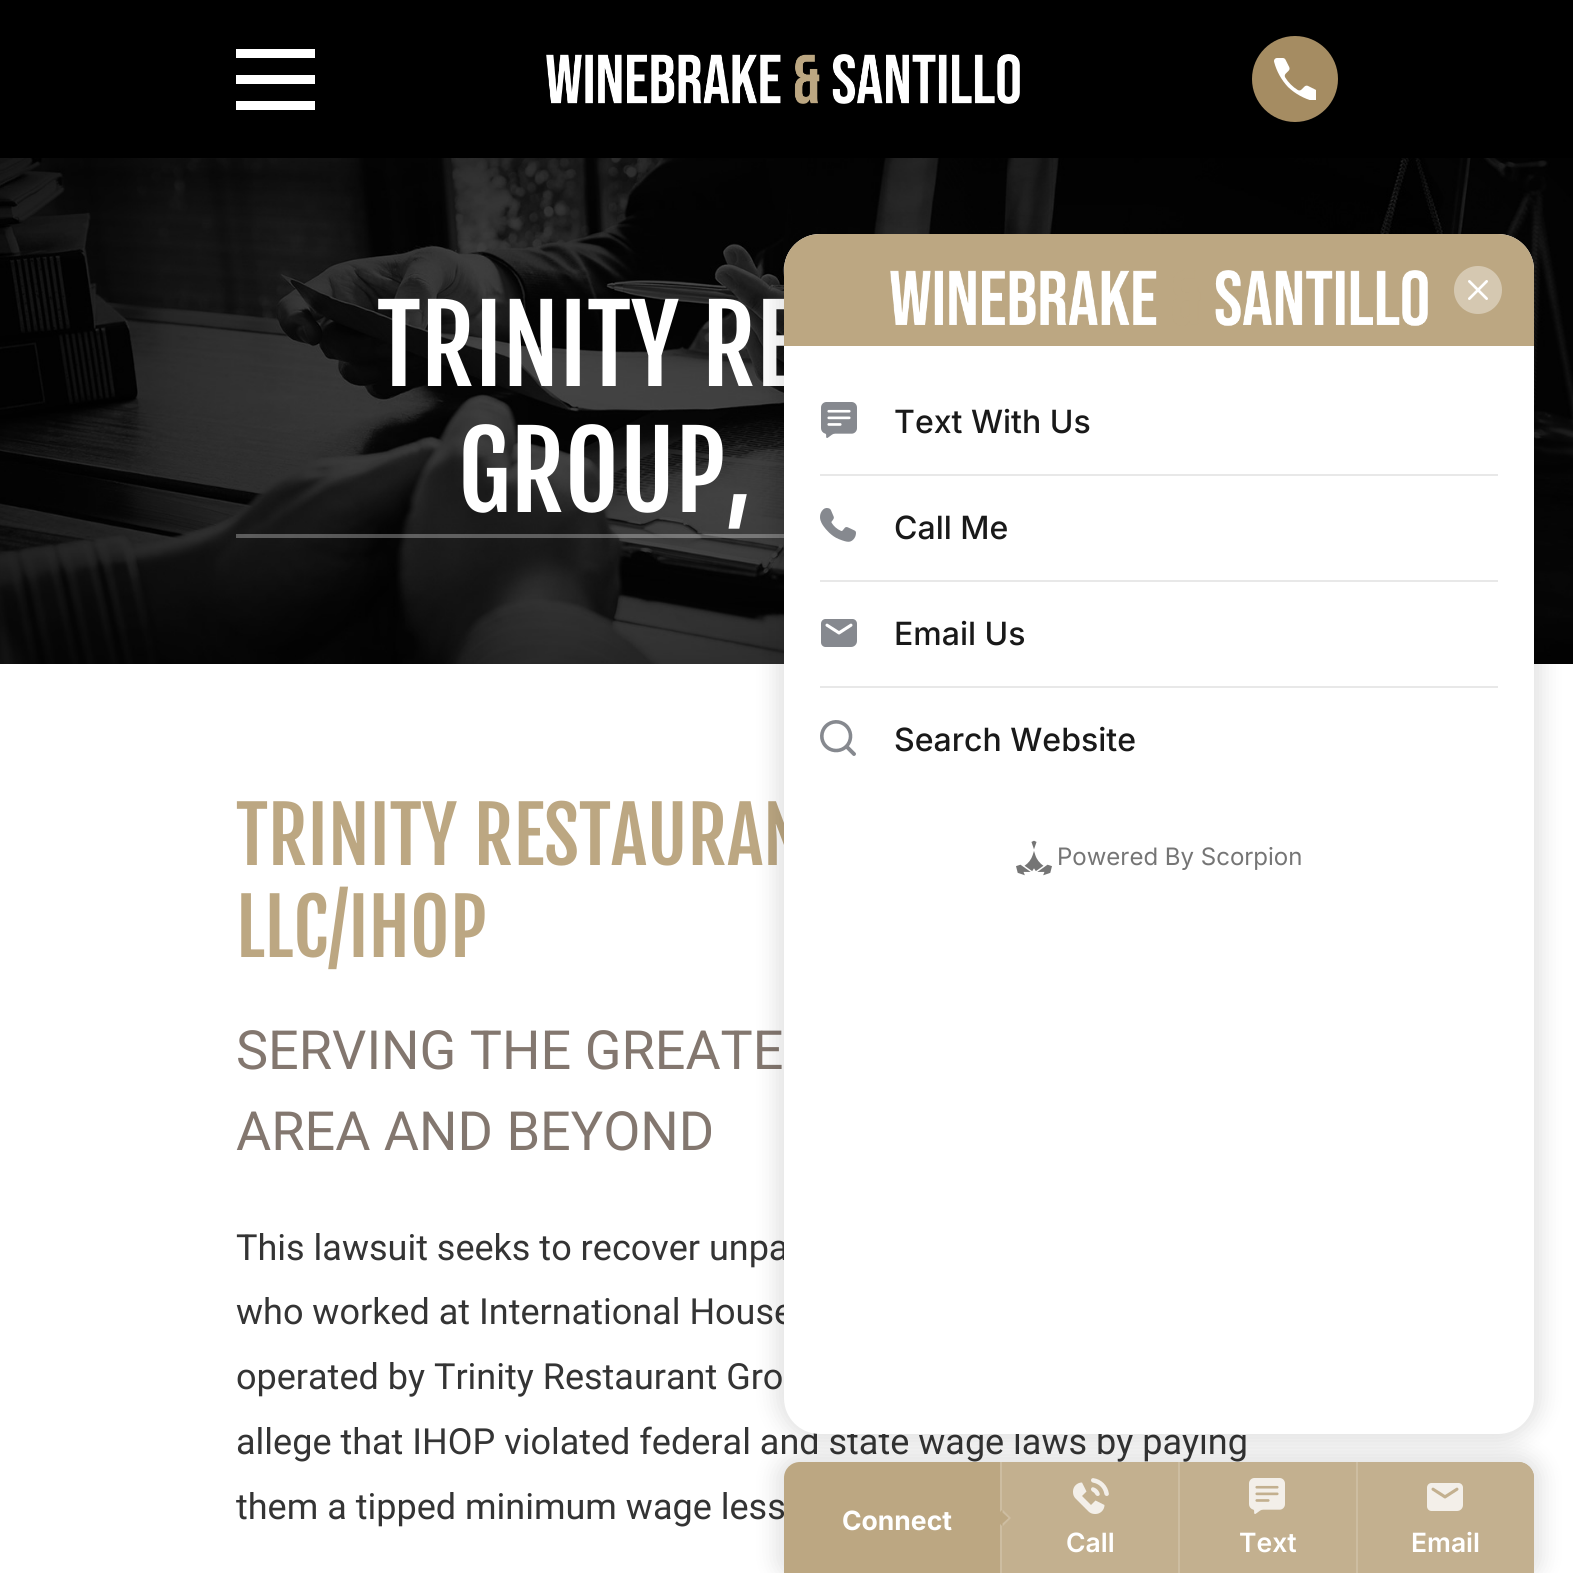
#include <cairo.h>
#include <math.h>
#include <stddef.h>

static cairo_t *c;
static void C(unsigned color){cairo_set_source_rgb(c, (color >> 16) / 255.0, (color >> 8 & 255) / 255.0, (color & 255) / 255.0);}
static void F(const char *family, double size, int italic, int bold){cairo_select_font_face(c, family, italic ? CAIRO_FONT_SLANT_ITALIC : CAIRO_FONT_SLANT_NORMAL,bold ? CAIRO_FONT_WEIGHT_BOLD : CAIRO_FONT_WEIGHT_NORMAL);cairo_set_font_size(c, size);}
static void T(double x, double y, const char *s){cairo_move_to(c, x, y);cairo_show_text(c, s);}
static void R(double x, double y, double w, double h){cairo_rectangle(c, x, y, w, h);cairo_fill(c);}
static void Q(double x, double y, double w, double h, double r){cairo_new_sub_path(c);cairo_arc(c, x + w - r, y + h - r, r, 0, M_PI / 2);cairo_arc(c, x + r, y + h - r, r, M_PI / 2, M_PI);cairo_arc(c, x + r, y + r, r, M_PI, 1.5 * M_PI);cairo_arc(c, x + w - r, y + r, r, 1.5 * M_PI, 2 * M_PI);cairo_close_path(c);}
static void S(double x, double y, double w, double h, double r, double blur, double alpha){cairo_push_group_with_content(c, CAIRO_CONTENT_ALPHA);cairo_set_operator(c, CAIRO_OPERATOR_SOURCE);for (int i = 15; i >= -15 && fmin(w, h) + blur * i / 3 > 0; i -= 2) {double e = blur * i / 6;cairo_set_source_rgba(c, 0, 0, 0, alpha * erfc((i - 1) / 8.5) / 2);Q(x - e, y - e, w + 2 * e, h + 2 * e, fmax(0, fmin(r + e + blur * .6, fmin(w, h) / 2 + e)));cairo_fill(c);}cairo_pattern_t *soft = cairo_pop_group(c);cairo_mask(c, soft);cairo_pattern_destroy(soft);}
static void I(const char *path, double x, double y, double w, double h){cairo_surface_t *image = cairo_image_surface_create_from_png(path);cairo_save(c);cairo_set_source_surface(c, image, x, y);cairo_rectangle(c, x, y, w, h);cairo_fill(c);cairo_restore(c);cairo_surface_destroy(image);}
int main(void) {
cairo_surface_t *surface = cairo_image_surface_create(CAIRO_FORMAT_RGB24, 1573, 1573);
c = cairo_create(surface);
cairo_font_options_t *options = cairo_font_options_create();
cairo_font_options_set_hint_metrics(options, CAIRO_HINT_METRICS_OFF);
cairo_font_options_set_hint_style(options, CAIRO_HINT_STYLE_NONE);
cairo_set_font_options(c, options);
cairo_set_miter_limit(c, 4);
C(0xffffff);
cairo_paint(c);
C(0x000000);
R(0,0,1573,158);
C(0xffffff);
cairo_new_path(c);
cairo_move_to(c,236,49);
cairo_line_to(c,236,58);
cairo_line_to(c,315,58);
cairo_line_to(c,315,49);
cairo_close_path(c);
cairo_move_to(c,236,75);
cairo_line_to(c,236,84);
cairo_line_to(c,315,84);
cairo_line_to(c,315,75);
cairo_close_path(c);
cairo_move_to(c,236,101);
cairo_line_to(c,236,110);
cairo_line_to(c,315,110);
cairo_line_to(c,315,101);
cairo_close_path(c);
cairo_fill(c);
I("1.png",546,54,474,50);
C(0xa58c62);
cairo_arc(c,1295,79,43,0,2 * M_PI);
cairo_fill(c);
I("2.png",1274,58,42,42);
I("3.png",0,158,1573,506);
F("Fjalla One",104.5,0,0);
C(0xffffff);
T(377,386,"TRINITY RE");
T(458,512,"GROUP,");
cairo_set_source_rgba(c,1,1,1,0.3);
R(236,534,548,4);
F("Fjalla One",76.5,0,0);
C(0xbca782);
T(236,865,"TRINITY RESTAURAN");
T(236,957,"LLC/IHOP");
F("Roboto",54,0,0);
C(0x83776f);
T(236,1069,"SERVING THE GREATE");
T(236,1150,"AREA AND BEYOND");
F("Roboto",36,0,0);
C(0x343434);
T(236,1260,"This lawsuit seeks to recover unpa");
T(236,1324,"who worked at International House");
T(236,1389,"operated by Trinity Restaurant Gro");
T(236,1454,"allege that IHOP violated federal and state wage laws by paying");
T(236,1519,"them a tipped minimum wage less");
C(0x000000);
S(774,224,770,1220,46,10,.1);
C(0xffffff);
Q(784,234,750,1200,36);
cairo_fill(c);
C(0xbca782);
cairo_new_path(c);
cairo_move_to(c,820,234);
cairo_line_to(c,1498,234);
cairo_curve_to(c,1518,234,1534,250,1534,270);
cairo_line_to(c,1534,346);
cairo_line_to(c,784,346);
cairo_line_to(c,784,270);
cairo_curve_to(c,784,250,800,234,820,234);
cairo_close_path(c);
cairo_fill(c);
I("4.png",890,270,538,56);
C(0xd5c8b1);
cairo_arc(c,1478,290,24,0,2 * M_PI);
cairo_fill(c);
I("5.png",1468,280,20,20);
C(0xe8e8e8);
R(820,474,678,2);
I("6.png",821,402,36,36);
F("Inter Medium",32,0,0);
C(0x191919);
T(894,433,"Text With Us");
C(0xe8e8e8);
R(820,580,678,2);
I("7.png",820,508,36,34);
C(0x191919);
T(894,539,"Call Me");
C(0xe8e8e8);
R(820,686,678,2);
I("8.png",821,619,36,28);
C(0x191919);
T(894,645,"Email Us");
I("9.png",820,720,36,36);
T(894,751,"Search Website");
I("10.png",1016,840,36,36);
F("Inter",24,0,0);
C(0x757575);
T(1057,865,"Powered By Scorpion");
C(0x000000);
S(774,1452,770,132,26,10,.1);
C(0xbca782);
cairo_new_path(c);
cairo_move_to(c,800,1462);
cairo_line_to(c,1518,1462);
cairo_curve_to(c,1527,1462,1534,1469,1534,1478);
cairo_line_to(c,1534,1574);
cairo_line_to(c,784,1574);
cairo_line_to(c,784,1478);
cairo_curve_to(c,784,1469,791,1462,800,1462);
cairo_close_path(c);
cairo_fill(c);
C(0xcdbda1);
R(1000,1462,2,111);
F("Inter",26.5,0,1);
C(0xffffff);
T(842,1530,"Connect");
C(0xc3b08f);
R(1002,1462,176,111);
C(0xbca782);
cairo_new_path(c);
cairo_move_to(c,1002.5,1509.5);
cairo_line_to(c,1011,1518);
cairo_line_to(c,1002.5,1526.5);
cairo_line_to(c,994,1518);
cairo_close_path(c);
cairo_fill(c);
cairo_set_source_rgba(c,1,1,1,0.25);
cairo_new_path(c);
cairo_move_to(c,1002.5,1509.5);
cairo_line_to(c,1011,1518);
cairo_line_to(c,1008.5,1518);
cairo_line_to(c,1002.5,1512.5);
cairo_close_path(c);
cairo_move_to(c,1011,1518);
cairo_line_to(c,1002.5,1526.5);
cairo_line_to(c,1002.5,1523.5);
cairo_line_to(c,1008.5,1518);
cairo_close_path(c);
cairo_fill(c);
C(0xcdbda1);
R(1178,1462,2,111);
I("11.png",1073,1478,36,36);
F("Inter SemiBold",26.5,0,0);
C(0xffffff);
T(1066,1552,"Call");
C(0xcdbda1);
R(1356,1462,2,111);
C(0xc3b08f);
R(1180,1462,176,111);
I("12.png",1249,1478,36,36);
C(0xffffff);
T(1239,1552,"Text");
C(0xc3b08f);
cairo_new_path(c);
cairo_move_to(c,1358,1462);
cairo_line_to(c,1518,1462);
cairo_curve_to(c,1527,1462,1534,1469,1534,1478);
cairo_line_to(c,1534,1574);
cairo_line_to(c,1358,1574);
cairo_close_path(c);
cairo_fill(c);
I("13.png",1427,1483,36,28);
C(0xffffff);
T(1411,1552,"Email");
cairo_surface_write_to_png(surface, "o.png");
cairo_font_options_destroy(options);
cairo_destroy(c);
cairo_surface_destroy(surface);
return 0;
}
